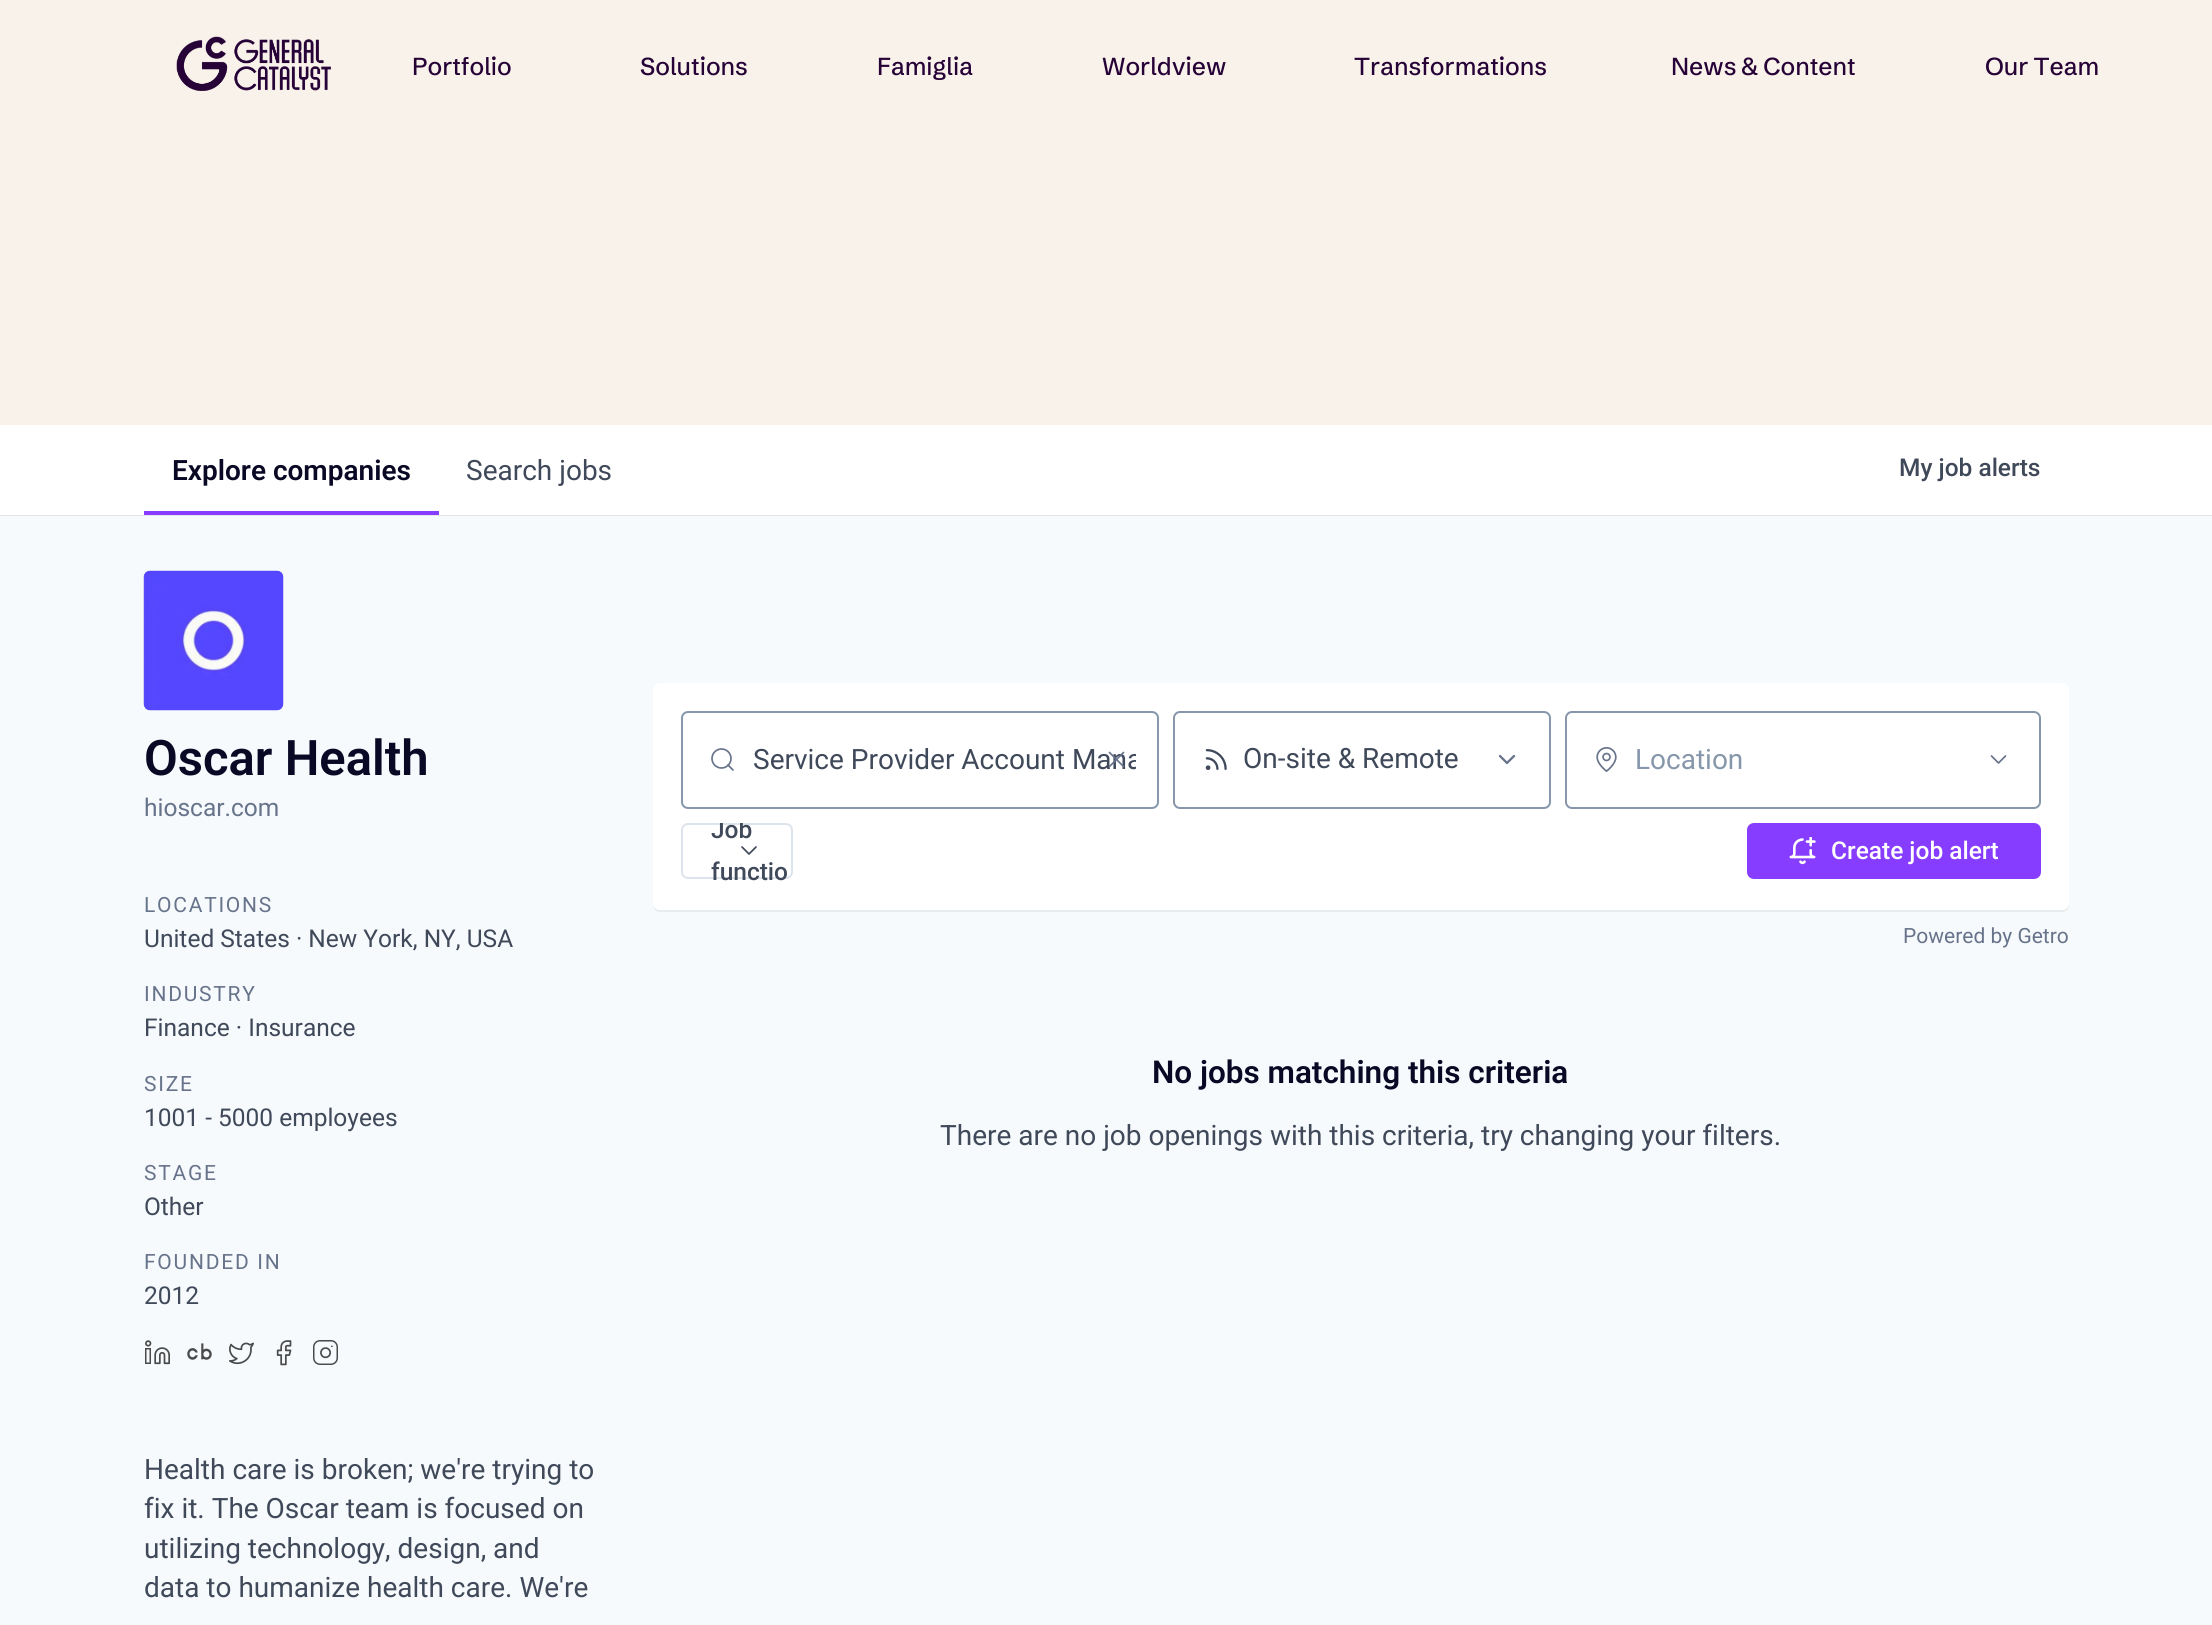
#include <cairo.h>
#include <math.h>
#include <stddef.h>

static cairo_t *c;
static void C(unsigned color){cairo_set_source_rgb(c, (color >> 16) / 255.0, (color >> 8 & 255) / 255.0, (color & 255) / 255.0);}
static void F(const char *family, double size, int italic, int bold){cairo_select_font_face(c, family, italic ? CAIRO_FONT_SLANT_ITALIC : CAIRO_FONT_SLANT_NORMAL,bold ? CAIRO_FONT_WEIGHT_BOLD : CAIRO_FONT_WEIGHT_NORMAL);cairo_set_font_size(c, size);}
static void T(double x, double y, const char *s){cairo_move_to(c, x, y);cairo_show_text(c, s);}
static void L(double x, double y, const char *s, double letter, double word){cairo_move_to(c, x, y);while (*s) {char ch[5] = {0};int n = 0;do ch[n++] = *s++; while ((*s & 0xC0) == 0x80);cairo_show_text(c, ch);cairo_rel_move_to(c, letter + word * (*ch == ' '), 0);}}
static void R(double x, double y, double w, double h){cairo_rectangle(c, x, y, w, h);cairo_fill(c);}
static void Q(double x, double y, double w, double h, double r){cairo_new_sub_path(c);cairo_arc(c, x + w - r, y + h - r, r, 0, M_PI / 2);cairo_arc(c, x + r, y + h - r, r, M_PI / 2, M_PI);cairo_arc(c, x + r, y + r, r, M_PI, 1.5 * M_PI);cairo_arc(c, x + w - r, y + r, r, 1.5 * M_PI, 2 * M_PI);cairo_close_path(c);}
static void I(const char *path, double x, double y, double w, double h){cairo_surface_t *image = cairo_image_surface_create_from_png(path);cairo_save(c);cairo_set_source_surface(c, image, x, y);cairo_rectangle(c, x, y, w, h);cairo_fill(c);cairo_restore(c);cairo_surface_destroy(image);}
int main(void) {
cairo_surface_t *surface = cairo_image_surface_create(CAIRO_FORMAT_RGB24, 2212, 1625);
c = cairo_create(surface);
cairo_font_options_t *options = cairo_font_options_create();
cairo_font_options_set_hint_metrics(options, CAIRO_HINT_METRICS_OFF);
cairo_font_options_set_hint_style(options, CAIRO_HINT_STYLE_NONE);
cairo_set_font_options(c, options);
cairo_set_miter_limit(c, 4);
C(0xf7fafc);
cairo_paint(c);
C(0xf8f2ea);
R(0,0,2212,425);
I("1.png",176,36,155,55);
F("Schibsted Grotesk Medium",24.5,0,0);
C(0x260237);
T(412,75,"Portfolio");
T(640,75,"Solutions");
T(877,75,"Famiglia");
T(1102,75,"Worldview");
T(1354,75,"Transformations");
L(1671,75,"News & Content",0,-1);
L(1985,75,"Our Team",0,-1);
C(0xe5e5e5);
R(0,515,2212,1);
C(0xffffff);
R(0,425,2212,90);
F("Roboto SemiBold",28,0,0);
C(0x090925);
T(172,480,"Explore companies");
C(0x863dff);
R(144,511,295,4);
F("Roboto",28,0,0);
C(0x3f495a);
T(466,480,"Search jobs");
F("Roboto Medium",24.5,0,0);
T(1899,476,"My job alerts");
I("2.png",143,570,141,141);
F("Roboto SemiBold",49,0,0);
C(0x090925);
T(144,775,"Oscar Health");
F("Roboto",24.5,0,0);
C(0x67738b);
T(144,816,"hioscar.com");
F("Roboto",21,0,0);
L(144,912,"LOCATIONS",1.75,0);
F("Roboto",24.5,0,0);
C(0x3f495a);
T(144,947,"United States · New York, NY, USA");
F("Roboto",21,0,0);
C(0x67738b);
L(144,1001,"INDUSTRY",1.75,0);
F("Roboto",24.5,0,0);
C(0x3f495a);
T(144,1036,"Finance · Insurance");
F("Roboto",21,0,0);
C(0x67738b);
L(144,1091,"SIZE",1.75,0);
F("Roboto",24.5,0,0);
C(0x3f495a);
T(144,1126,"1001 - 5000 employees");
F("Roboto",21,0,0);
C(0x67738b);
L(144,1180,"STAGE",1.75,0);
F("Roboto",24.5,0,0);
C(0x3f495a);
T(144,1215,"Other");
F("Roboto",21,0,0);
C(0x67738b);
L(144,1269,"FOUNDED IN",1.75,0);
F("Roboto",24.5,0,0);
C(0x3f495a);
T(144,1304,"2012");
I("3.png",145,1340,25,25);
I("4.png",187,1343,25,17);
I("5.png",229,1342,25,23);
I("6.png",276,1340,16,26);
I("7.png",313,1340,25,25);
F("Roboto",28,0,0);
T(144,1479,"Health care is broken; we're trying to");
T(144,1518,"fix it. The Oscar team is focused on");
T(144,1558,"utilizing technology, design, and");
T(144,1597,"data to humanize health care. We're");
C(0xe8ebed);
cairo_new_path(c);
cairo_move_to(c,653,905);
cairo_curve_to(c,653,909,656,912,660,912);
cairo_line_to(c,2062,912);
cairo_curve_to(c,2066,912,2069,909,2069,905);
cairo_line_to(c,2069,691);
cairo_line_to(c,2068,688);
cairo_line_to(c,2068,903);
cairo_curve_to(c,2068,907,2065,910,2062,910);
cairo_line_to(c,660,910);
cairo_curve_to(c,657,910,654,908,653,905);
cairo_close_path(c);
cairo_fill(c);
C(0xffffff);
Q(653,683,1416,227,7);
cairo_fill(c);
Q(682,712,476,96,6);
C(0x8797ab);
cairo_stroke(c);
cairo_arc(c,721.5,758.5,9.5,0,2 * M_PI);
C(0x67738b);
cairo_set_line_width(c,1.7);
cairo_stroke(c);
cairo_new_path(c);
cairo_move_to(c,733,770);
cairo_line_to(c,728,765);
cairo_set_line_cap(c,CAIRO_LINE_CAP_ROUND);
cairo_set_line_join(c,CAIRO_LINE_JOIN_ROUND);
cairo_stroke(c);
cairo_save(c);
cairo_rectangle(c,753,744,383,33);
cairo_clip(c);
C(0x3f495a);
T(753,769,"Service Provider Account Mana");
cairo_restore(c);
cairo_new_path(c);
cairo_move_to(c,1123.5,752.5);
cairo_line_to(c,1109.5,766.5);
cairo_move_to(c,1109.5,752.5);
cairo_line_to(c,1123.5,766.5);
cairo_stroke(c);
Q(1174,712,376,96,6);
C(0x8797ab);
cairo_set_line_width(c,2);
cairo_set_line_cap(c,CAIRO_LINE_CAP_BUTT);
cairo_set_line_join(c,CAIRO_LINE_JOIN_MITER);
cairo_stroke(c);
I("8.png",1205,749,22,21);
C(0x3f495a);
T(1243,768,"On-site & Remote");
cairo_new_path(c);
cairo_move_to(c,1500,756);
cairo_line_to(c,1507,763);
cairo_line_to(c,1514,756);
C(0x67738b);
cairo_set_line_width(c,2.3);
cairo_set_line_cap(c,CAIRO_LINE_CAP_ROUND);
cairo_set_line_join(c,CAIRO_LINE_JOIN_ROUND);
cairo_stroke(c);
Q(1566,712,474,96,6);
C(0x8797ab);
cairo_set_line_width(c,2);
cairo_set_line_cap(c,CAIRO_LINE_CAP_BUTT);
cairo_set_line_join(c,CAIRO_LINE_JOIN_MITER);
cairo_stroke(c);
I("9.png",1596,747,21,25);
T(1635,769,"Location");
cairo_new_path(c);
cairo_move_to(c,1991.5,756);
cairo_line_to(c,1998.5,763);
cairo_line_to(c,2005.5,756);
C(0x67738b);
cairo_set_line_width(c,1.7);
cairo_set_line_cap(c,CAIRO_LINE_CAP_ROUND);
cairo_set_line_join(c,CAIRO_LINE_JOIN_ROUND);
cairo_stroke(c);
Q(682,824,110,54,6);
C(0xdee4ed);
cairo_set_line_width(c,2);
cairo_set_line_cap(c,CAIRO_LINE_CAP_BUTT);
cairo_set_line_join(c,CAIRO_LINE_JOIN_MITER);
cairo_stroke(c);
cairo_save(c);
cairo_rectangle(c,681,823,112,59);
cairo_clip(c);
F("Roboto Medium",24.5,0,0);
C(0x3f495a);
T(711,838,"Job");
cairo_restore(c);
F("Roboto Medium",24.5,0,0);
C(0x3f495a);
T(711,880,"functio");
cairo_new_path(c);
cairo_move_to(c,742,847);
cairo_line_to(c,749,854);
cairo_line_to(c,756,847);
cairo_set_line_width(c,1.7);
cairo_set_line_cap(c,CAIRO_LINE_CAP_ROUND);
cairo_set_line_join(c,CAIRO_LINE_JOIN_ROUND);
cairo_stroke(c);
C(0x863dff);
Q(1747,823,294,56,7);
cairo_fill(c);
I("10.png",1789,837,27,28);
C(0xffffff);
T(1831,859,"Create job alert");
F("Roboto",21,0,0);
C(0x67738b);
T(1903,943,"Powered by Getro");
F("Roboto SemiBold",31.5,0,0);
C(0x090925);
T(1152,1083,"No jobs matching this criteria");
F("Roboto",28,0,0);
C(0x3f495a);
T(940,1145,"There are no job openings with this criteria, try changing your filters.");
cairo_surface_write_to_png(surface, "o.png");
cairo_font_options_destroy(options);
cairo_destroy(c);
cairo_surface_destroy(surface);
return 0;
}
